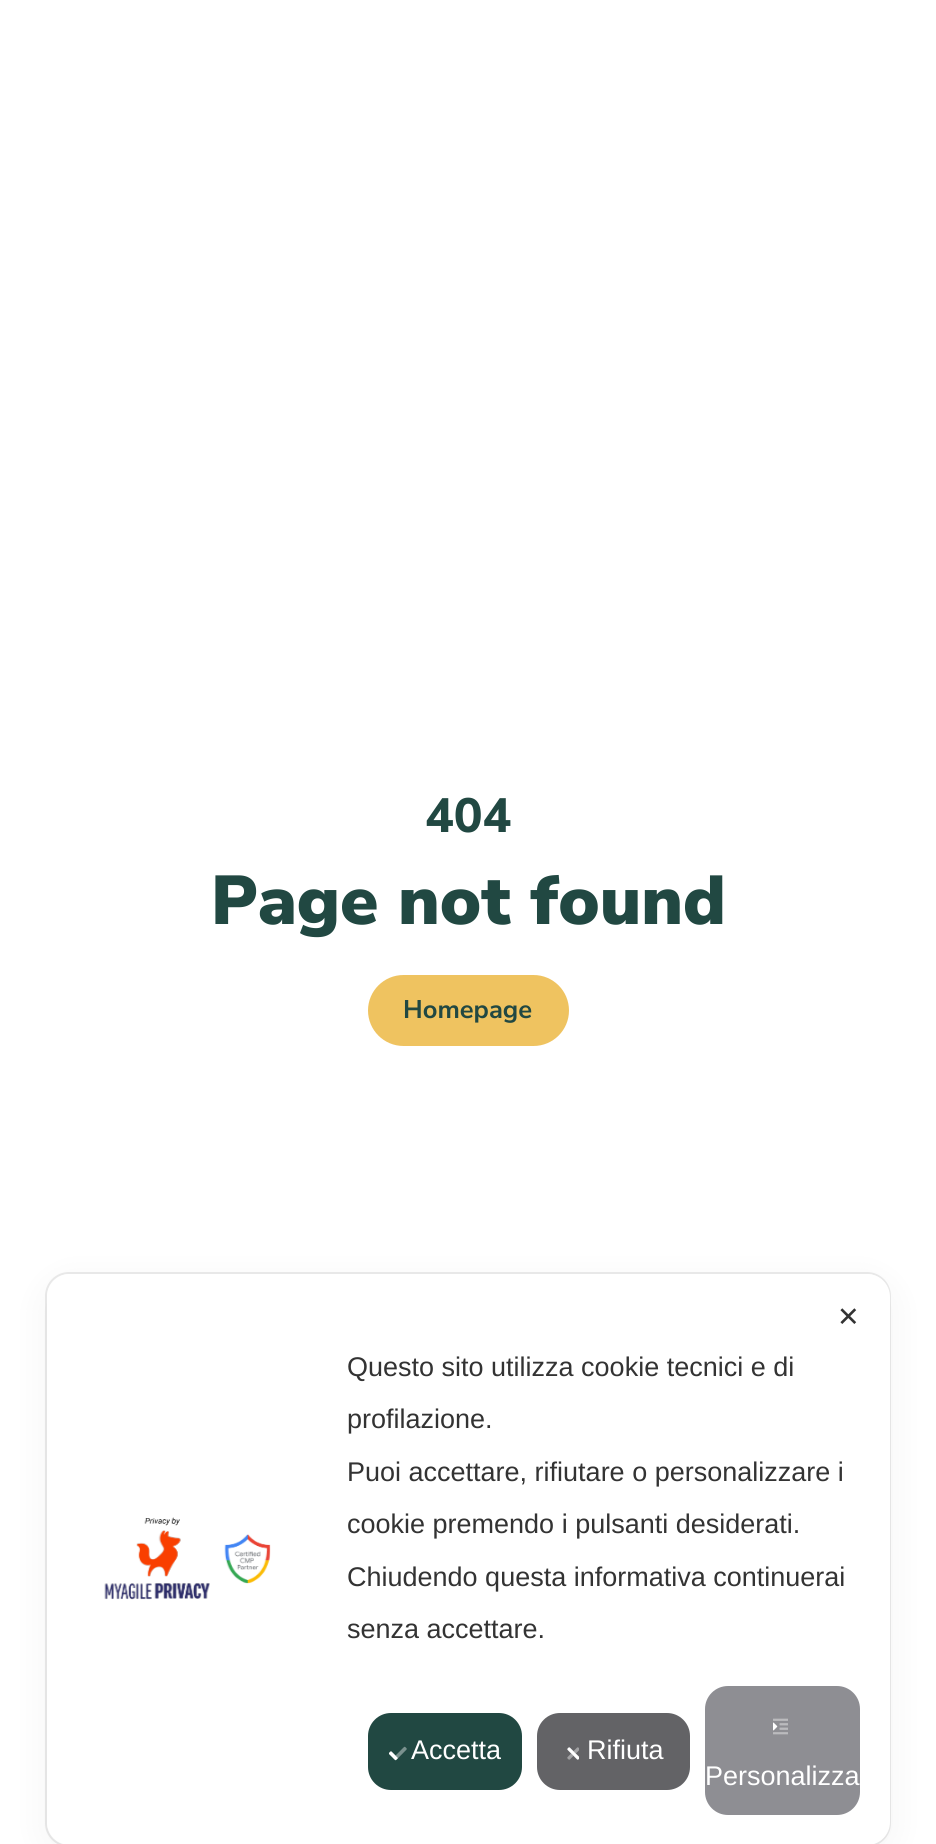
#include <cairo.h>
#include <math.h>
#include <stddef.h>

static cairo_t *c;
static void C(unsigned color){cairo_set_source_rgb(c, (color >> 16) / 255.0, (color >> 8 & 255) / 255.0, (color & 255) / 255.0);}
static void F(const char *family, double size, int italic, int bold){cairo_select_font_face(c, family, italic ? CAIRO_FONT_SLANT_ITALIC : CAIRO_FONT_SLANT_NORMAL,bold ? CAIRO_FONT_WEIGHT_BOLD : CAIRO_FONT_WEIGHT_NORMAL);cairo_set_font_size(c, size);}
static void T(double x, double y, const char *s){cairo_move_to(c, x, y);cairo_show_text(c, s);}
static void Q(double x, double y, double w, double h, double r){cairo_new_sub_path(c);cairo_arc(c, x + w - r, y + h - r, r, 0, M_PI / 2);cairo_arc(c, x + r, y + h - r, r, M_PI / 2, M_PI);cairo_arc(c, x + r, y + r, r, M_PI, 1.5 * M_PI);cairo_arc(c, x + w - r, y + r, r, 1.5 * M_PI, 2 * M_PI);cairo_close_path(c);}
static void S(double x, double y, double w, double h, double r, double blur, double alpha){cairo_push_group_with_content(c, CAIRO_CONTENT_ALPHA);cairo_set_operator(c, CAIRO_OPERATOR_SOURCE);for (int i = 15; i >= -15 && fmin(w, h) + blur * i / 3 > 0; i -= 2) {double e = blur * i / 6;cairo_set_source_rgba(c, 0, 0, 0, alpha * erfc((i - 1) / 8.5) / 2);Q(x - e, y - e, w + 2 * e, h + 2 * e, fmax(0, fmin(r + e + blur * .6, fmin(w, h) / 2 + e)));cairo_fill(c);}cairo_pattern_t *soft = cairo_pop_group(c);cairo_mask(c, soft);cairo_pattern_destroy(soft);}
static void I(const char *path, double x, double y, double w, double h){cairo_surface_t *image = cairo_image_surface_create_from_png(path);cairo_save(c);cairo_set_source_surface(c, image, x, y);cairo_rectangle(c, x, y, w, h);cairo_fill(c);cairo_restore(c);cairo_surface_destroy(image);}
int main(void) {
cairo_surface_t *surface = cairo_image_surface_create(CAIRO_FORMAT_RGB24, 936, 1844);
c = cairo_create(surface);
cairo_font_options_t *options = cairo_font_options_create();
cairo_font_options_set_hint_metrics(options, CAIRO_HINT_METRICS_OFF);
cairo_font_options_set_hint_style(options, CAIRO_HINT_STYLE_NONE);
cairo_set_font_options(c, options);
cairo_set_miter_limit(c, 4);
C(0xffffff);
cairo_paint(c);
F("Nunito Sans ExtraBold",48,0,0);
C(0x214842);
T(425,832,"404");
F("Nunito Sans Black",69,0,0);
T(211,924,"Page not found");
C(0xefc360);
Q(368,975,201,71,35.5);
cairo_fill(c);
F("Nunito Sans",25.5,0,1);
C(0x214842);
T(403,1018,"Homepage");
Q(46,1273,844,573,23);
C(0xebebeb);
cairo_stroke(c);
C(0x000000);
S(47,1283,843,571,23,18,.05);
C(0xffffff);
Q(47,1274,843,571,23);
cairo_fill(c);
F("DejaVu Sans",27,0,0);
C(0x333333);
T(837,1326,"✕");
I("1.png",104,1517,167,83);
F("Liberation Sans",27,0,0);
T(347,1376,"Questo sito utilizza cookie tecnici e di");
T(347,1428,"profilazione.");
T(347,1481,"Puoi accettare, rifiutare o personalizzare i");
T(347,1533,"cookie premendo i pulsanti desiderati.");
T(347,1586,"Chiudendo questa informativa continuerai");
T(347,1638,"senza accettare.");
C(0x214842);
Q(368,1713,154,77,23);
cairo_fill(c);
I("2.png",389,1746,18,15);
C(0xffffff);
T(411,1759,"Accetta");
C(0x636366);
Q(537,1713,153,77,23);
cairo_fill(c);
I("3.png",567,1747,12,13);
C(0xffffff);
T(587,1759,"Rifiuta");
C(0x8e8e93);
Q(705,1686,155,129,23);
cairo_fill(c);
I("4.png",773,1718,15,17);
C(0xffffff);
T(705,1785,"Personalizza");
cairo_surface_write_to_png(surface, "o.png");
cairo_font_options_destroy(options);
cairo_destroy(c);
cairo_surface_destroy(surface);
return 0;
}
